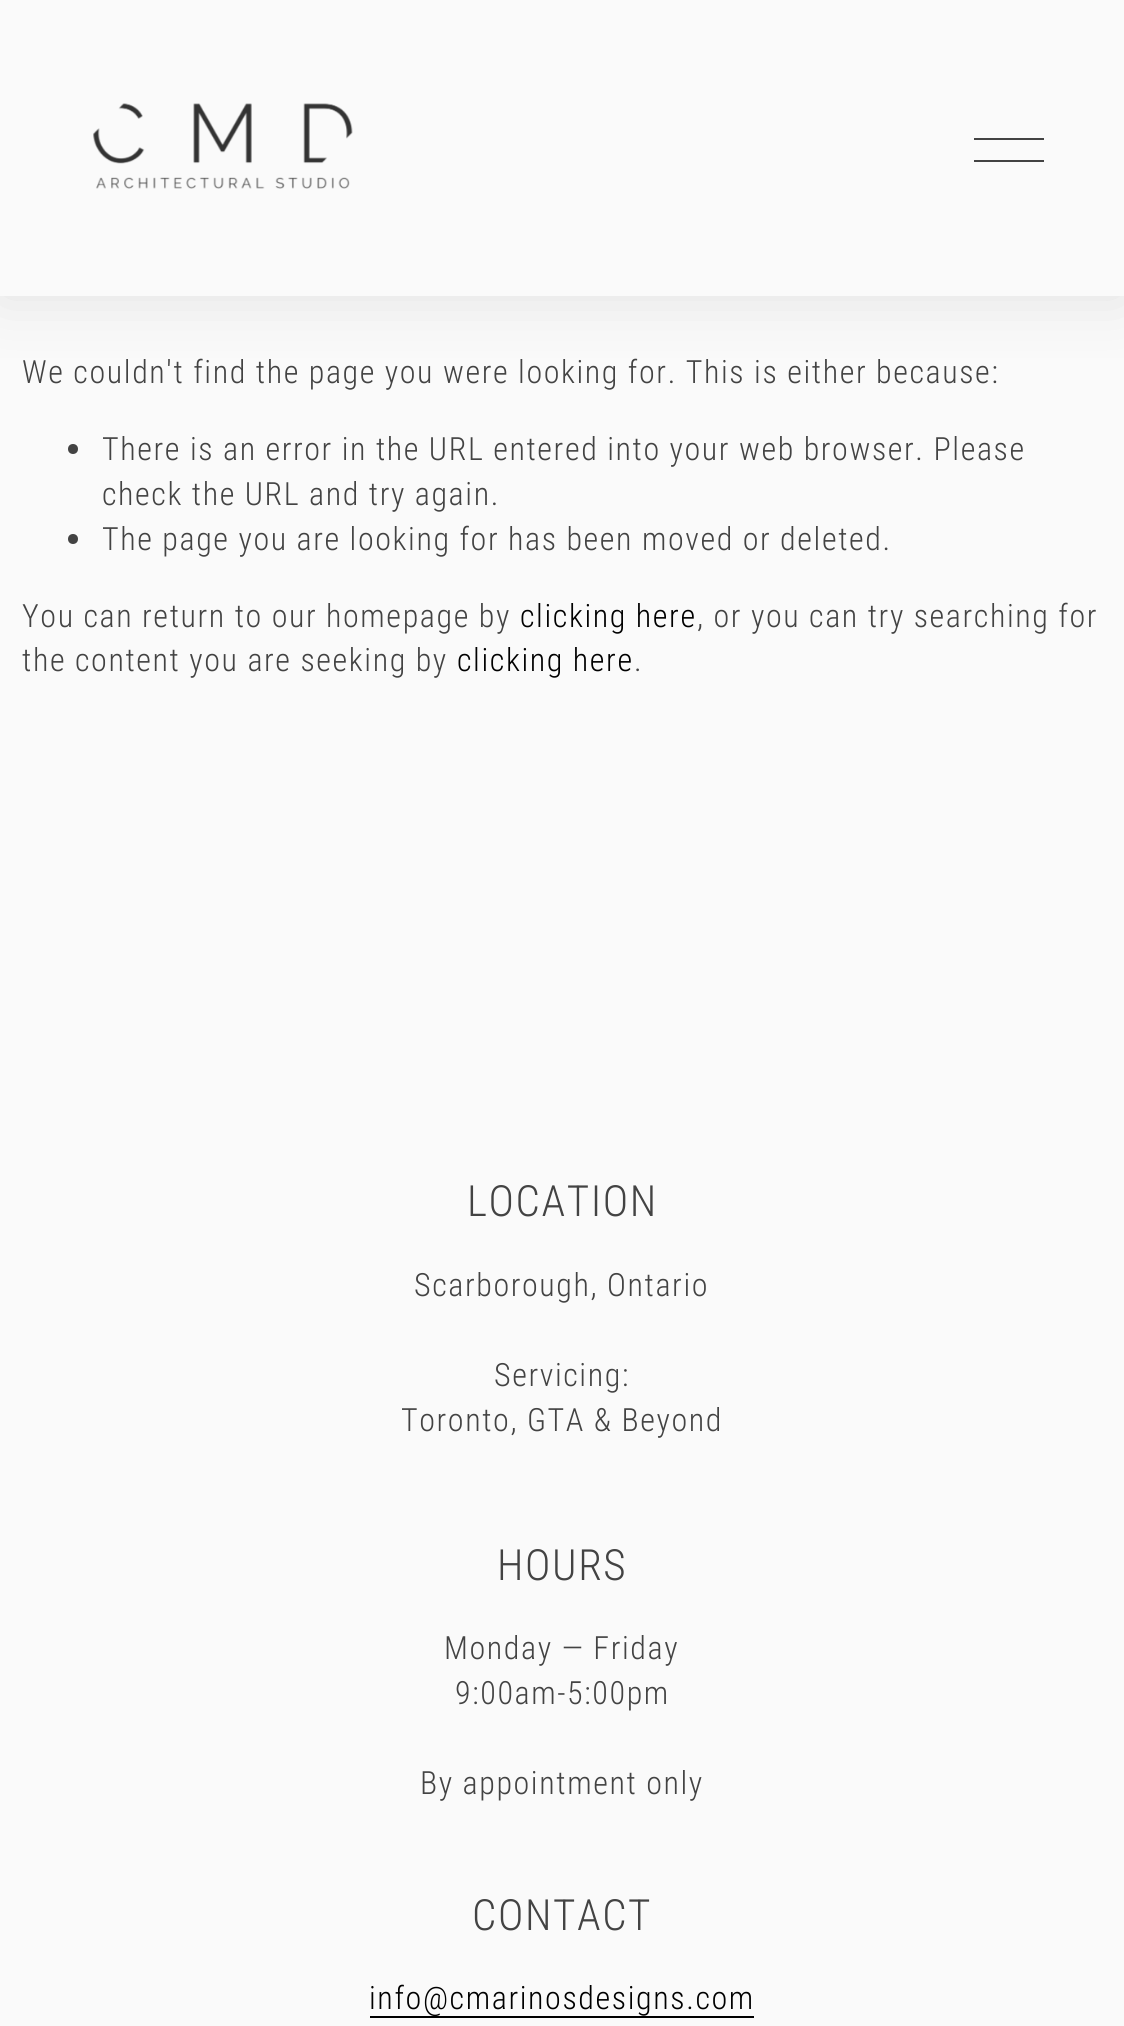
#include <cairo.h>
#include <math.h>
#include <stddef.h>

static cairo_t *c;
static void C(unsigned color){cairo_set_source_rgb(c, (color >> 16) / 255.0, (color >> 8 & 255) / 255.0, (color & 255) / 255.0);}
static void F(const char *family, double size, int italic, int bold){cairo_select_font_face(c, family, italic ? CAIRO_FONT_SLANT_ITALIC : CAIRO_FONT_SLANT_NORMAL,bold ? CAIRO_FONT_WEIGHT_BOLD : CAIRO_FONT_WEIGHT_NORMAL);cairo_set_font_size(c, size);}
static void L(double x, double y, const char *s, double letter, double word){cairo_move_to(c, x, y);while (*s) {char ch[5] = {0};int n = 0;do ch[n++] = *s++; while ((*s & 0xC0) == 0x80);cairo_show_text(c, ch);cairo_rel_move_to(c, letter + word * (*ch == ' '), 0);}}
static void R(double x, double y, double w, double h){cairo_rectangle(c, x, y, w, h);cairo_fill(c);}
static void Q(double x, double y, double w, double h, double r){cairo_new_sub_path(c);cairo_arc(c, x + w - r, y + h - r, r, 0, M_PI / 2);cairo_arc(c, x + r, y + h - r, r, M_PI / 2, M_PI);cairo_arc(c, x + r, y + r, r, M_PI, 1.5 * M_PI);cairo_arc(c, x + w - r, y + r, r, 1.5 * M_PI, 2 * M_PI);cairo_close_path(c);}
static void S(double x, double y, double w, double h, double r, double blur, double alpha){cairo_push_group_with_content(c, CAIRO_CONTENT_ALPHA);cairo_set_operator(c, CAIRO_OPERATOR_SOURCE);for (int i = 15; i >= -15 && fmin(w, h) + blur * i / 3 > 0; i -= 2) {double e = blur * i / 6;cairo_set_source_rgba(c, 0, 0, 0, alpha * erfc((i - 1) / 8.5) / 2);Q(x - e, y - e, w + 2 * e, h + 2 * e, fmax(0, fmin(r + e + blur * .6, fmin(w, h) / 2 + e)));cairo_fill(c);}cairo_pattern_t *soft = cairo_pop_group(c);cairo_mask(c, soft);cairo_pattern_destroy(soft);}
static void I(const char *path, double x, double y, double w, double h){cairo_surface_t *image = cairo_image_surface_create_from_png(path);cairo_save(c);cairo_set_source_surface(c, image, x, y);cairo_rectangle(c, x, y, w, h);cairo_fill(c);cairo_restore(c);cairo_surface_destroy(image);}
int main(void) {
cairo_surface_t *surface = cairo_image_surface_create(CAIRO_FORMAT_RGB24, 1124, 2026);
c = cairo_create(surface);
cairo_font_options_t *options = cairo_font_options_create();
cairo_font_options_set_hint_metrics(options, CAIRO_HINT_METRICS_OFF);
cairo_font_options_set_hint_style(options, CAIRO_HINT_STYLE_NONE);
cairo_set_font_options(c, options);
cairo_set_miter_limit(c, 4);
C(0xfafafa);
cairo_paint(c);
cairo_save(c);
cairo_rectangle(c,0,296,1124,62);
cairo_clip(c);
C(0xdfdfdf);
S(0,0,1124,296,0,30,1);
cairo_restore(c);
I("1.png",93,103,260,86);
C(0x434343);
R(974,138,70,2);
R(974,160,70,2);
F("Roboto Condensed Light",32,0,0);
L(22,383,"We couldn't find the page you were looking for. This is either because:",1.6,0);
cairo_new_path(c);
cairo_arc(c,73,449,5,0,2 * M_PI);
cairo_fill(c);
L(102,460,"There is an error in the URL entered into your web browser. Please",1.6,0);
L(102,505,"check the URL and try again.",1.6,0);
cairo_new_path(c);
cairo_arc(c,73,539,5,0,2 * M_PI);
cairo_fill(c);
L(102,550,"The page you are looking for has been moved or deleted.",1.6,0);
L(22,627,"You can return to our homepage by",1.6,0);
C(0x000000);
L(520,627,"clicking here",1.6,0);
C(0x434343);
L(697,627,", or you can try searching for",1.6,0);
L(22,671,"the content you are seeking by",1.6,0);
C(0x000000);
L(457,671,"clicking here",1.6,0);
C(0x434343);
L(634,671,".",1.6,0);
F("Roboto Condensed Light",43,0,0);
L(467,1216,"LOCATION",1.6,0);
F("Roboto Condensed Light",32,0,0);
L(414,1296,"Scarborough, Ontario",1.6,0);
L(494,1386,"Servicing:",1.6,0);
L(401,1431,"Toronto, GTA & Beyond",1.6,0);
F("Roboto Condensed Light",43,0,0);
L(497,1580,"HOURS",1.6,0);
F("Roboto Condensed Light",32,0,0);
L(444,1659,"Monday — Friday",1.6,0);
L(455,1704,"9:00am-5:00pm",1.6,0);
L(420,1794,"By appointment only",1.6,0);
F("Roboto Condensed Light",43,0,0);
L(472,1930,"CONTACT",1.6,0);
C(0x000000);
R(370,2016,384,2);
F("Roboto Condensed Light",32,0,0);
L(369,2009,"info@cmarinosdesigns.com",1.6,0);
cairo_surface_write_to_png(surface, "o.png");
cairo_font_options_destroy(options);
cairo_destroy(c);
cairo_surface_destroy(surface);
return 0;
}
